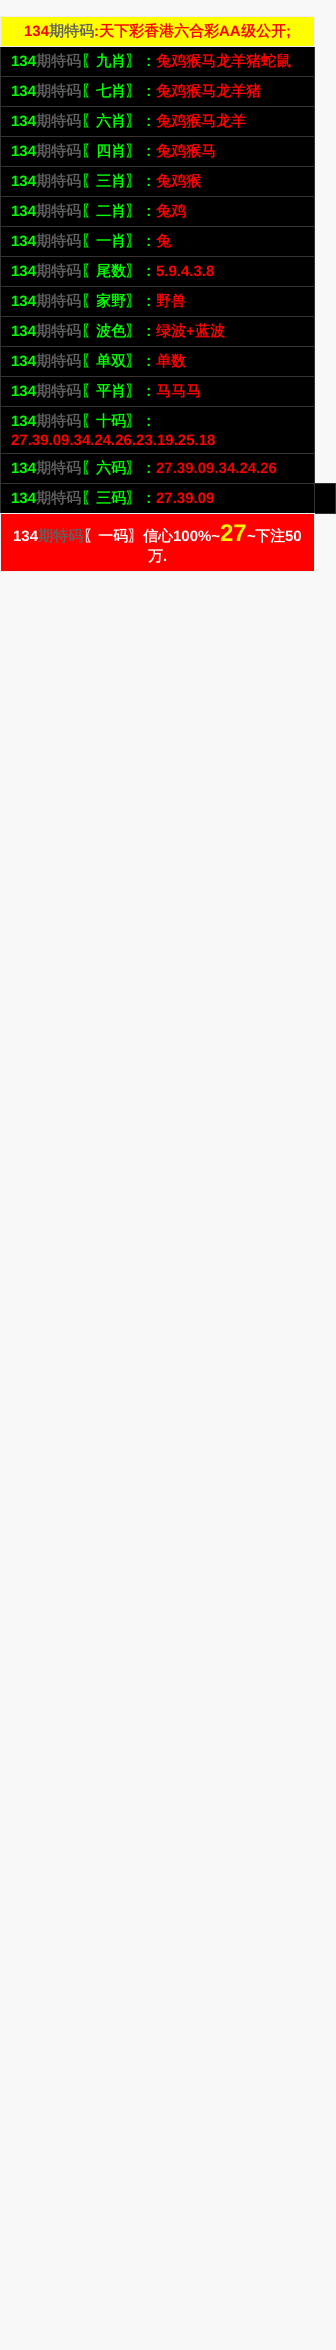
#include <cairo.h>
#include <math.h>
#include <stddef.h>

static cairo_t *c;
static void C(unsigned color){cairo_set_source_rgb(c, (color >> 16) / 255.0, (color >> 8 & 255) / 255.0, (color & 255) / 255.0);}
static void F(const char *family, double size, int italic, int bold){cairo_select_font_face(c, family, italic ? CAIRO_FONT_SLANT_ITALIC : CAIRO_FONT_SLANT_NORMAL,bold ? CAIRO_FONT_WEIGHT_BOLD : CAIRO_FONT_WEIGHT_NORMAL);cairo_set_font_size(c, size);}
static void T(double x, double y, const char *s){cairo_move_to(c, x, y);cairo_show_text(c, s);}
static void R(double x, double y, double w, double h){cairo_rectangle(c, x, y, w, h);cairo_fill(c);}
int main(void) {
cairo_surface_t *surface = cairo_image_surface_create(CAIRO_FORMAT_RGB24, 336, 2350);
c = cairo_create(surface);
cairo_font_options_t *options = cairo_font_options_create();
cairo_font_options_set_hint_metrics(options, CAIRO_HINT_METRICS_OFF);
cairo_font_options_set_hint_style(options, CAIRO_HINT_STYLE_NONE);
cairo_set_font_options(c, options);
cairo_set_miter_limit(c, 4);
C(0xf8f8f8);
cairo_paint(c);
C(0xffff00);
R(1,17,313,29);
C(0xeeeeee);
R(0,16,315,1);
C(0x333333);
R(0,76,315,1);
R(0,106,315,1);
R(0,136,315,1);
R(0,166,315,1);
R(0,196,315,1);
R(0,226,315,1);
R(0,256,315,1);
R(0,286,315,1);
R(0,316,315,1);
R(0,346,315,1);
R(0,376,315,1);
R(0,406,315,1);
R(0,453,315,1);
R(314,483,22,1);
R(335,483,1,31);
R(314,513,22,1);
R(314,483,1,31);
R(0,483,315,1);
R(314,453,1,31);
R(314,406,1,48);
R(314,376,1,31);
R(314,346,1,31);
R(314,316,1,31);
R(314,286,1,31);
R(314,256,1,31);
R(314,226,1,31);
R(314,196,1,31);
R(314,166,1,31);
R(314,136,1,31);
R(314,106,1,31);
R(314,46,1,61);
C(0xeeeeee);
R(314,16,1,31);
C(0x333333);
R(0,483,1,31);
R(0,453,1,31);
R(0,406,1,48);
R(0,376,1,31);
R(0,346,1,31);
R(0,316,1,31);
R(0,286,1,31);
R(0,256,1,31);
R(0,226,1,31);
R(0,196,1,31);
R(0,166,1,31);
R(0,136,1,31);
R(0,106,1,31);
R(0,46,1,61);
C(0xeeeeee);
R(0,46,315,1);
R(0,16,1,31);
F("Liberation Sans",15,0,1);
C(0xff0000);
T(24,36,"134");
F("WenQuanYi Zen Hei",15,0,1);
C(0x606060);
T(49,36,"期特码");
F("Liberation Sans",15,0,1);
C(0xff0000);
T(94,36,":");
F("WenQuanYi Zen Hei",15,0,1);
T(99,36,"天下彩香港六合彩");
F("Liberation Sans",15,0,1);
T(219,36,"AA");
F("WenQuanYi Zen Hei",15,0,1);
T(241,36,"级公开");
F("Liberation Sans",15,0,1);
T(286,36,";");
C(0x000000);
R(1,47,313,29);
C(0x00ff00);
T(11,66,"134");
F("WenQuanYi Zen Hei",15,0,1);
C(0x606060);
T(36,66,"期特码");
C(0x00ff00);
T(81,66,"〖九肖〗：");
C(0xff0000);
T(156,66,"兔鸡猴马龙羊猪蛇鼠");
C(0x000000);
R(1,77,313,29);
F("Liberation Sans",15,0,1);
C(0x00ff00);
T(11,96,"134");
F("WenQuanYi Zen Hei",15,0,1);
C(0x606060);
T(36,96,"期特码");
C(0x00ff00);
T(81,96,"〖七肖〗：");
C(0xff0000);
T(156,96,"兔鸡猴马龙羊猪");
C(0x000000);
R(1,107,313,29);
F("Liberation Sans",15,0,1);
C(0x00ff00);
T(11,126,"134");
F("WenQuanYi Zen Hei",15,0,1);
C(0x606060);
T(36,126,"期特码");
C(0x00ff00);
T(81,126,"〖六肖〗：");
C(0xff0000);
T(156,126,"兔鸡猴马龙羊");
C(0x000000);
R(1,137,313,29);
F("Liberation Sans",15,0,1);
C(0x00ff00);
T(11,156,"134");
F("WenQuanYi Zen Hei",15,0,1);
C(0x606060);
T(36,156,"期特码");
C(0x00ff00);
T(81,156,"〖四肖〗：");
C(0xff0000);
T(156,156,"兔鸡猴马");
C(0x000000);
R(1,167,313,29);
F("Liberation Sans",15,0,1);
C(0x00ff00);
T(11,186,"134");
F("WenQuanYi Zen Hei",15,0,1);
C(0x606060);
T(36,186,"期特码");
C(0x00ff00);
T(81,186,"〖三肖〗：");
C(0xff0000);
T(156,186,"兔鸡猴");
C(0x000000);
R(1,197,313,29);
F("Liberation Sans",15,0,1);
C(0x00ff00);
T(11,216,"134");
F("WenQuanYi Zen Hei",15,0,1);
C(0x606060);
T(36,216,"期特码");
C(0x00ff00);
T(81,216,"〖二肖〗：");
C(0xff0000);
T(156,216,"兔鸡");
C(0x000000);
R(1,227,313,29);
F("Liberation Sans",15,0,1);
C(0x00ff00);
T(11,246,"134");
F("WenQuanYi Zen Hei",15,0,1);
C(0x606060);
T(36,246,"期特码");
C(0x00ff00);
T(81,246,"〖一肖〗：");
C(0xff0000);
T(156,246,"兔");
C(0x000000);
R(1,257,313,29);
F("Liberation Sans",15,0,1);
C(0x00ff00);
T(11,276,"134");
F("WenQuanYi Zen Hei",15,0,1);
C(0x606060);
T(36,276,"期特码");
C(0x00ff00);
T(81,276,"〖尾数〗：");
F("Liberation Sans",15,0,1);
C(0xff0000);
T(156,276,"5.9.4.3.8");
C(0x000000);
R(1,287,313,29);
C(0x00ff00);
T(11,306,"134");
F("WenQuanYi Zen Hei",15,0,1);
C(0x606060);
T(36,306,"期特码");
C(0x00ff00);
T(81,306,"〖家野〗：");
C(0xff0000);
T(156,306,"野兽");
C(0x000000);
R(1,317,313,29);
F("Liberation Sans",15,0,1);
C(0x00ff00);
T(11,336,"134");
F("WenQuanYi Zen Hei",15,0,1);
C(0x606060);
T(36,336,"期特码");
C(0x00ff00);
T(81,336,"〖波色〗：");
C(0xff0000);
T(156,336,"绿波");
F("Liberation Sans",15,0,1);
T(186,336,"+");
F("WenQuanYi Zen Hei",15,0,1);
T(195,336,"蓝波");
C(0x000000);
R(1,347,313,29);
F("Liberation Sans",15,0,1);
C(0x00ff00);
T(11,366,"134");
F("WenQuanYi Zen Hei",15,0,1);
C(0x606060);
T(36,366,"期特码");
C(0x00ff00);
T(81,366,"〖单双〗：");
C(0xff0000);
T(156,366,"单数");
C(0x000000);
R(1,377,313,29);
F("Liberation Sans",15,0,1);
C(0x00ff00);
T(11,396,"134");
F("WenQuanYi Zen Hei",15,0,1);
C(0x606060);
T(36,396,"期特码");
C(0x00ff00);
T(81,396,"〖平肖〗：");
C(0xff0000);
T(156,396,"马马马");
C(0x000000);
R(1,407,313,46);
F("Liberation Sans",15,0,1);
C(0x00ff00);
T(11,426,"134");
F("WenQuanYi Zen Hei",15,0,1);
C(0x606060);
T(36,426,"期特码");
C(0x00ff00);
T(81,426,"〖十码〗：");
F("Liberation Sans",15,0,1);
C(0xff0000);
T(11,445,"27.39.09.34.24.26.23.19.25.18");
C(0x000000);
R(1,454,313,29);
C(0x00ff00);
T(11,473,"134");
F("WenQuanYi Zen Hei",15,0,1);
C(0x606060);
T(36,473,"期特码");
C(0x00ff00);
T(81,473,"〖六码〗：");
F("Liberation Sans",15,0,1);
C(0xf10000);
T(156,473,"27.39.09.34.24.26");
C(0x000000);
R(1,484,313,29);
C(0x00ff00);
T(11,503,"134");
F("WenQuanYi Zen Hei",15,0,1);
C(0x606060);
T(36,503,"期特码");
C(0x00ff00);
T(81,503,"〖三码〗：");
F("Liberation Sans",15,0,1);
C(0xff0000);
T(156,503,"27.39.09");
C(0x000000);
R(315,484,20,29);
C(0xff0000);
R(1,514,313,57);
C(0xeeeeee);
R(0,513,315,1);
R(314,513,1,59);
R(0,571,315,1);
R(0,513,1,59);
C(0xffffff);
T(13,541,"134");
F("WenQuanYi Zen Hei",15,0,1);
C(0x606060);
T(38,541,"期特码");
C(0xffffff);
T(83,541,"〖一码〗信心");
F("Liberation Sans",15,0,1);
T(173,541,"100%~");
F("Liberation Sans",24,0,1);
C(0xfff000);
T(220,541,"27");
F("Liberation Sans",15,0,1);
C(0xffffff);
T(247,541,"~");
F("WenQuanYi Zen Hei",15,0,1);
T(255,541,"下注");
F("Liberation Sans",15,0,1);
T(285,541,"50");
F("WenQuanYi Zen Hei",15,0,1);
T(148,561,"万");
F("Liberation Sans",15,0,1);
T(163,561,".");
cairo_surface_write_to_png(surface, "o.png");
cairo_font_options_destroy(options);
cairo_destroy(c);
cairo_surface_destroy(surface);
return 0;
}
